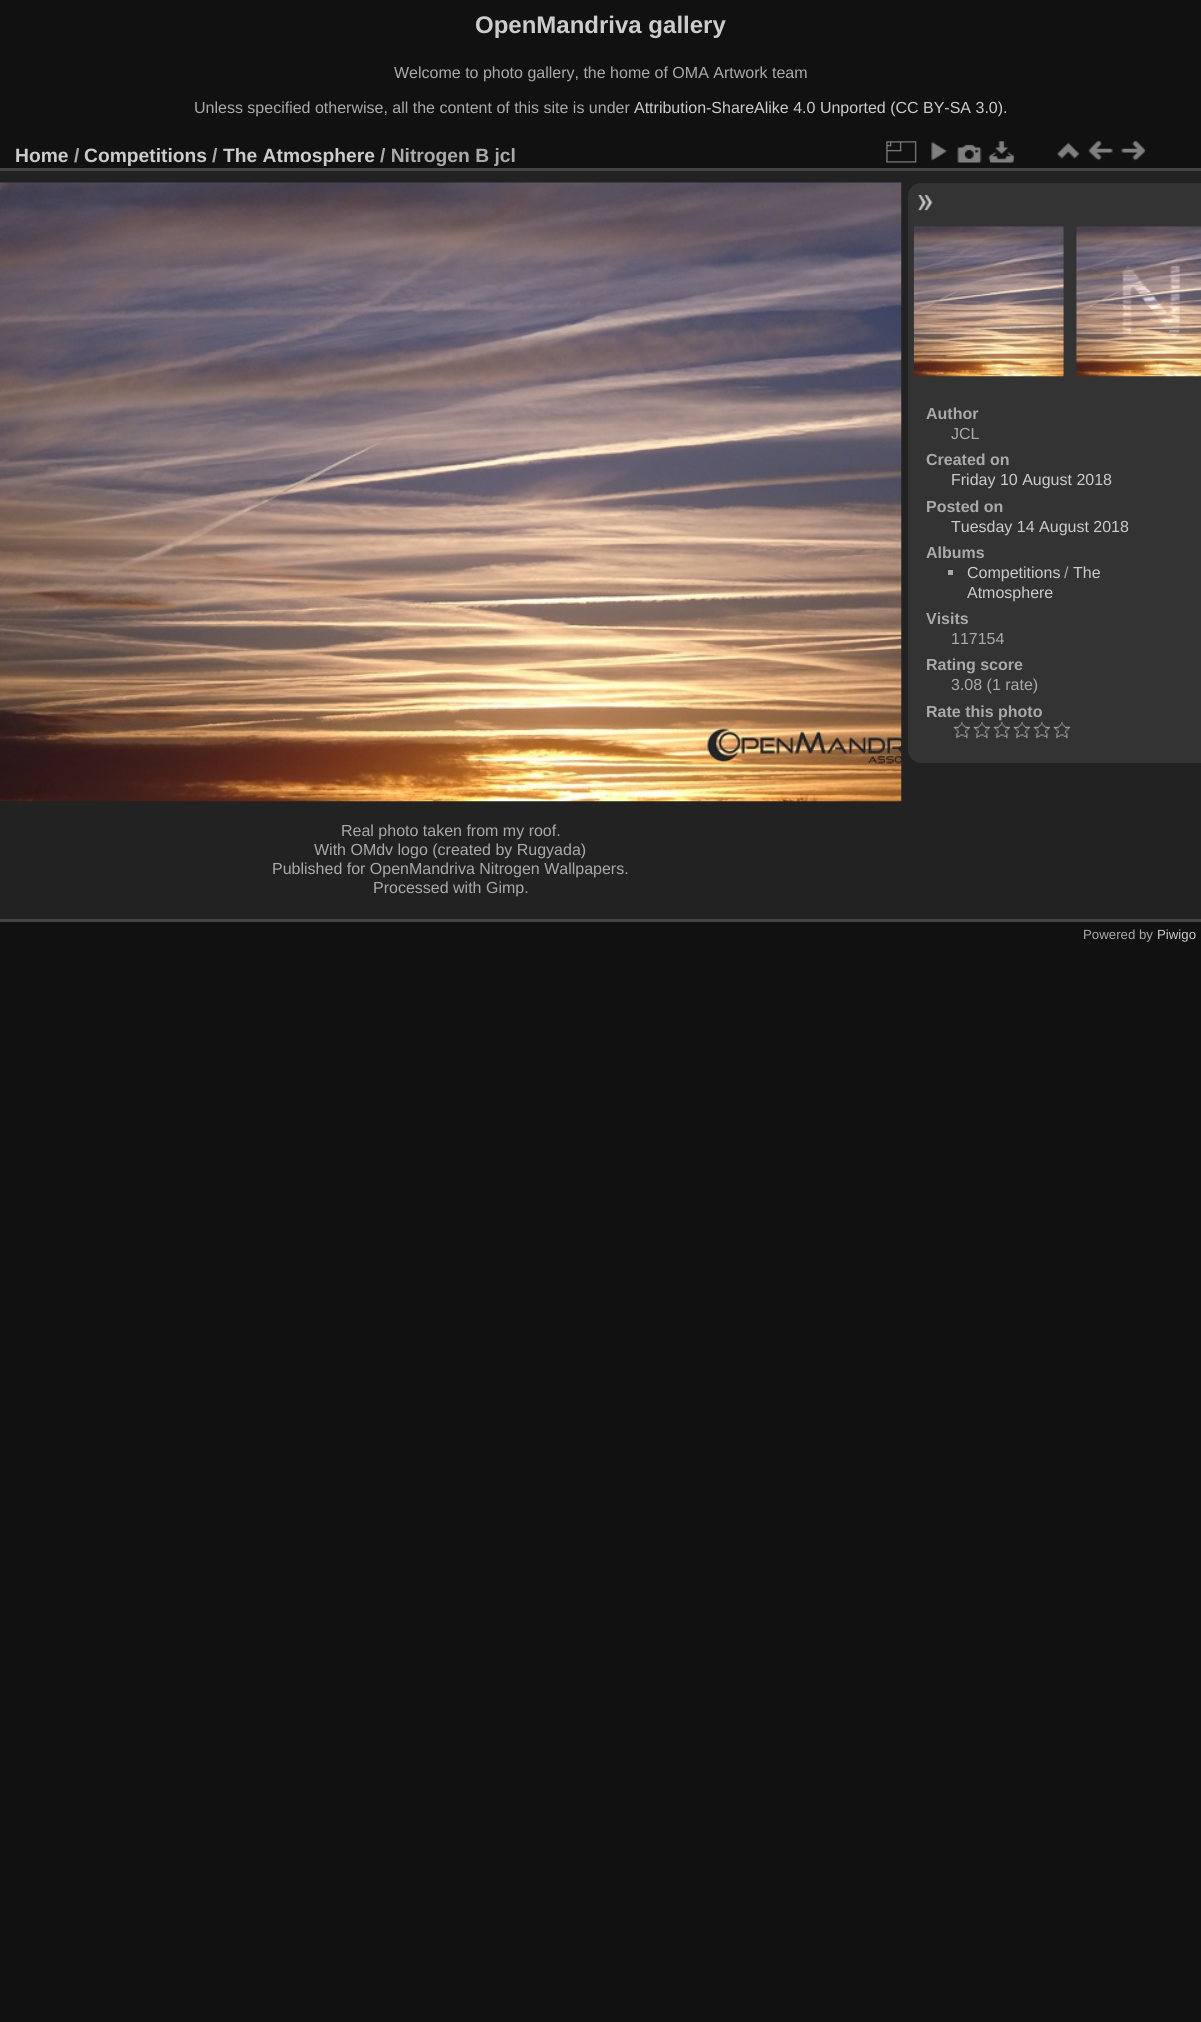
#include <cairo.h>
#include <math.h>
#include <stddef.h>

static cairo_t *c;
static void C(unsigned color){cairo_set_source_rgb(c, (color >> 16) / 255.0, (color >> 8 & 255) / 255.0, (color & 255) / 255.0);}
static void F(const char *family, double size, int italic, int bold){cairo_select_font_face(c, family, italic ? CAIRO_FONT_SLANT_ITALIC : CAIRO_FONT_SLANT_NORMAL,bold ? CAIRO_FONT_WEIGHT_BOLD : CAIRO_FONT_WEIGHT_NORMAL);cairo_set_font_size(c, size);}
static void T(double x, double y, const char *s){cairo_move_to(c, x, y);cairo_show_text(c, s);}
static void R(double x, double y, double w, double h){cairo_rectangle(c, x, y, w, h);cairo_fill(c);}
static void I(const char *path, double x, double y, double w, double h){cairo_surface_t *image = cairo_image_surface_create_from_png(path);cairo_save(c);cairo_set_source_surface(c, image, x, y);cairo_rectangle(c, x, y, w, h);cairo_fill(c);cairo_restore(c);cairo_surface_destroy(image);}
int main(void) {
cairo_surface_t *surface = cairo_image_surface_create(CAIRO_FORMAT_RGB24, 1201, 2022);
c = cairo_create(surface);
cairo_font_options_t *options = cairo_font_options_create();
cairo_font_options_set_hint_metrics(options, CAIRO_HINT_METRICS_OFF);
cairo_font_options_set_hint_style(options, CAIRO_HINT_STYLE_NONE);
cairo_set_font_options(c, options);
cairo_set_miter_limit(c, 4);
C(0x111111);
cairo_paint(c);
F("Liberation Sans",24,0,1);
C(0xcccccc);
T(475,33,"OpenMandriva gallery");
F("Liberation Sans",16,0,0);
C(0xaaaaaa);
T(394,78,"Welcome to photo gallery, the home of OMA Artwork team");
T(194,113,"Unless specified otherwise, all the content of this site is under");
C(0xcccccc);
T(634,113,"Attribution-ShareAlike 4.0 Unported (CC BY-SA 3.0).");
C(0x222222);
R(0,171,1201,748);
C(0x444444);
R(0,919,1201,3);
R(0,168,1201,3);
F("Liberation Sans",19.25,0,1);
C(0xcccccc);
T(15,162,"Home");
C(0xaaaaaa);
T(74,162,"/");
C(0xcccccc);
T(84,162,"Competitions");
C(0xaaaaaa);
T(212,162,"/");
C(0xcccccc);
T(223,162,"The Atmosphere");
C(0xaaaaaa);
T(380,162,"/ Nitrogen B jcl");
I("1.png",886,141,31,22);
I("2.png",931,142,16,19);
I("3.png",957,144,25,19);
I("4.png",988,141,27,22);
I("5.png",1057,142,22,17);
I("6.png",1088,141,25,20);
I("7.png",1121,141,25,20);
C(0x333333);
cairo_new_path(c);
cairo_move_to(c,921,183);
cairo_line_to(c,1201,183);
cairo_line_to(c,1201,763);
cairo_line_to(c,921,763);
cairo_curve_to(c,914,763,908,757,908,750);
cairo_line_to(c,908,196);
cairo_curve_to(c,908,189,914,183,921,183);
cairo_close_path(c);
cairo_fill(c);
I("8.png",918,194,15,17);
I("9.png",913,226,151,151);
I("10.png",1076,226,125,151);
F("Liberation Sans",16,0,1);
C(0xaaaaaa);
T(926,419,"Author");
F("Liberation Sans",16,0,0);
T(951,439,"JCL");
F("Liberation Sans",16,0,1);
T(926,465,"Created on");
F("Liberation Sans",16,0,0);
C(0xcccccc);
T(951,485,"Friday 10 August 2018");
F("Liberation Sans",16,0,1);
C(0xaaaaaa);
T(926,512,"Posted on");
F("Liberation Sans",16,0,0);
C(0xcccccc);
T(951,532,"Tuesday 14 August 2018");
F("Liberation Sans",16,0,1);
C(0xaaaaaa);
T(926,558,"Albums");
R(948,570,5,5);
F("Liberation Sans",16,0,0);
C(0xcccccc);
T(967,578,"Competitions");
C(0xaaaaaa);
T(1064,578,"/");
C(0xcccccc);
T(1073,578,"The");
T(967,598,"Atmosphere");
F("Liberation Sans",16,0,1);
C(0xaaaaaa);
T(926,624,"Visits");
F("Liberation Sans",16,0,0);
T(951,644,"117154");
F("Liberation Sans",16,0,1);
T(926,670,"Rating score");
F("Liberation Sans",16,0,0);
T(951,690,"3.08 (1 rate)");
F("Liberation Sans",16,0,1);
T(926,717,"Rate this photo");
I("11.png",953,721,18,18);
I("11.png",973,721,18,18);
I("11.png",993,721,18,18);
I("12.png",1013,721,18,18);
I("11.png",1033,721,18,18);
I("11.png",1053,721,18,18);
I("13.png",0,182,902,620);
F("Liberation Sans",16,0,0);
T(341,836,"Real photo taken from my roof.");
T(314,855,"With OMdv logo (created by Rugyada)");
T(272,874,"Published for OpenMandriva Nitrogen Wallpapers.");
T(373,893,"Processed with Gimp.");
F("Liberation Sans",13.25,0,0);
T(1083,939,"Powered by");
C(0xcccccc);
T(1157,939,"Piwigo");
cairo_surface_write_to_png(surface, "o.png");
cairo_font_options_destroy(options);
cairo_destroy(c);
cairo_surface_destroy(surface);
return 0;
}
